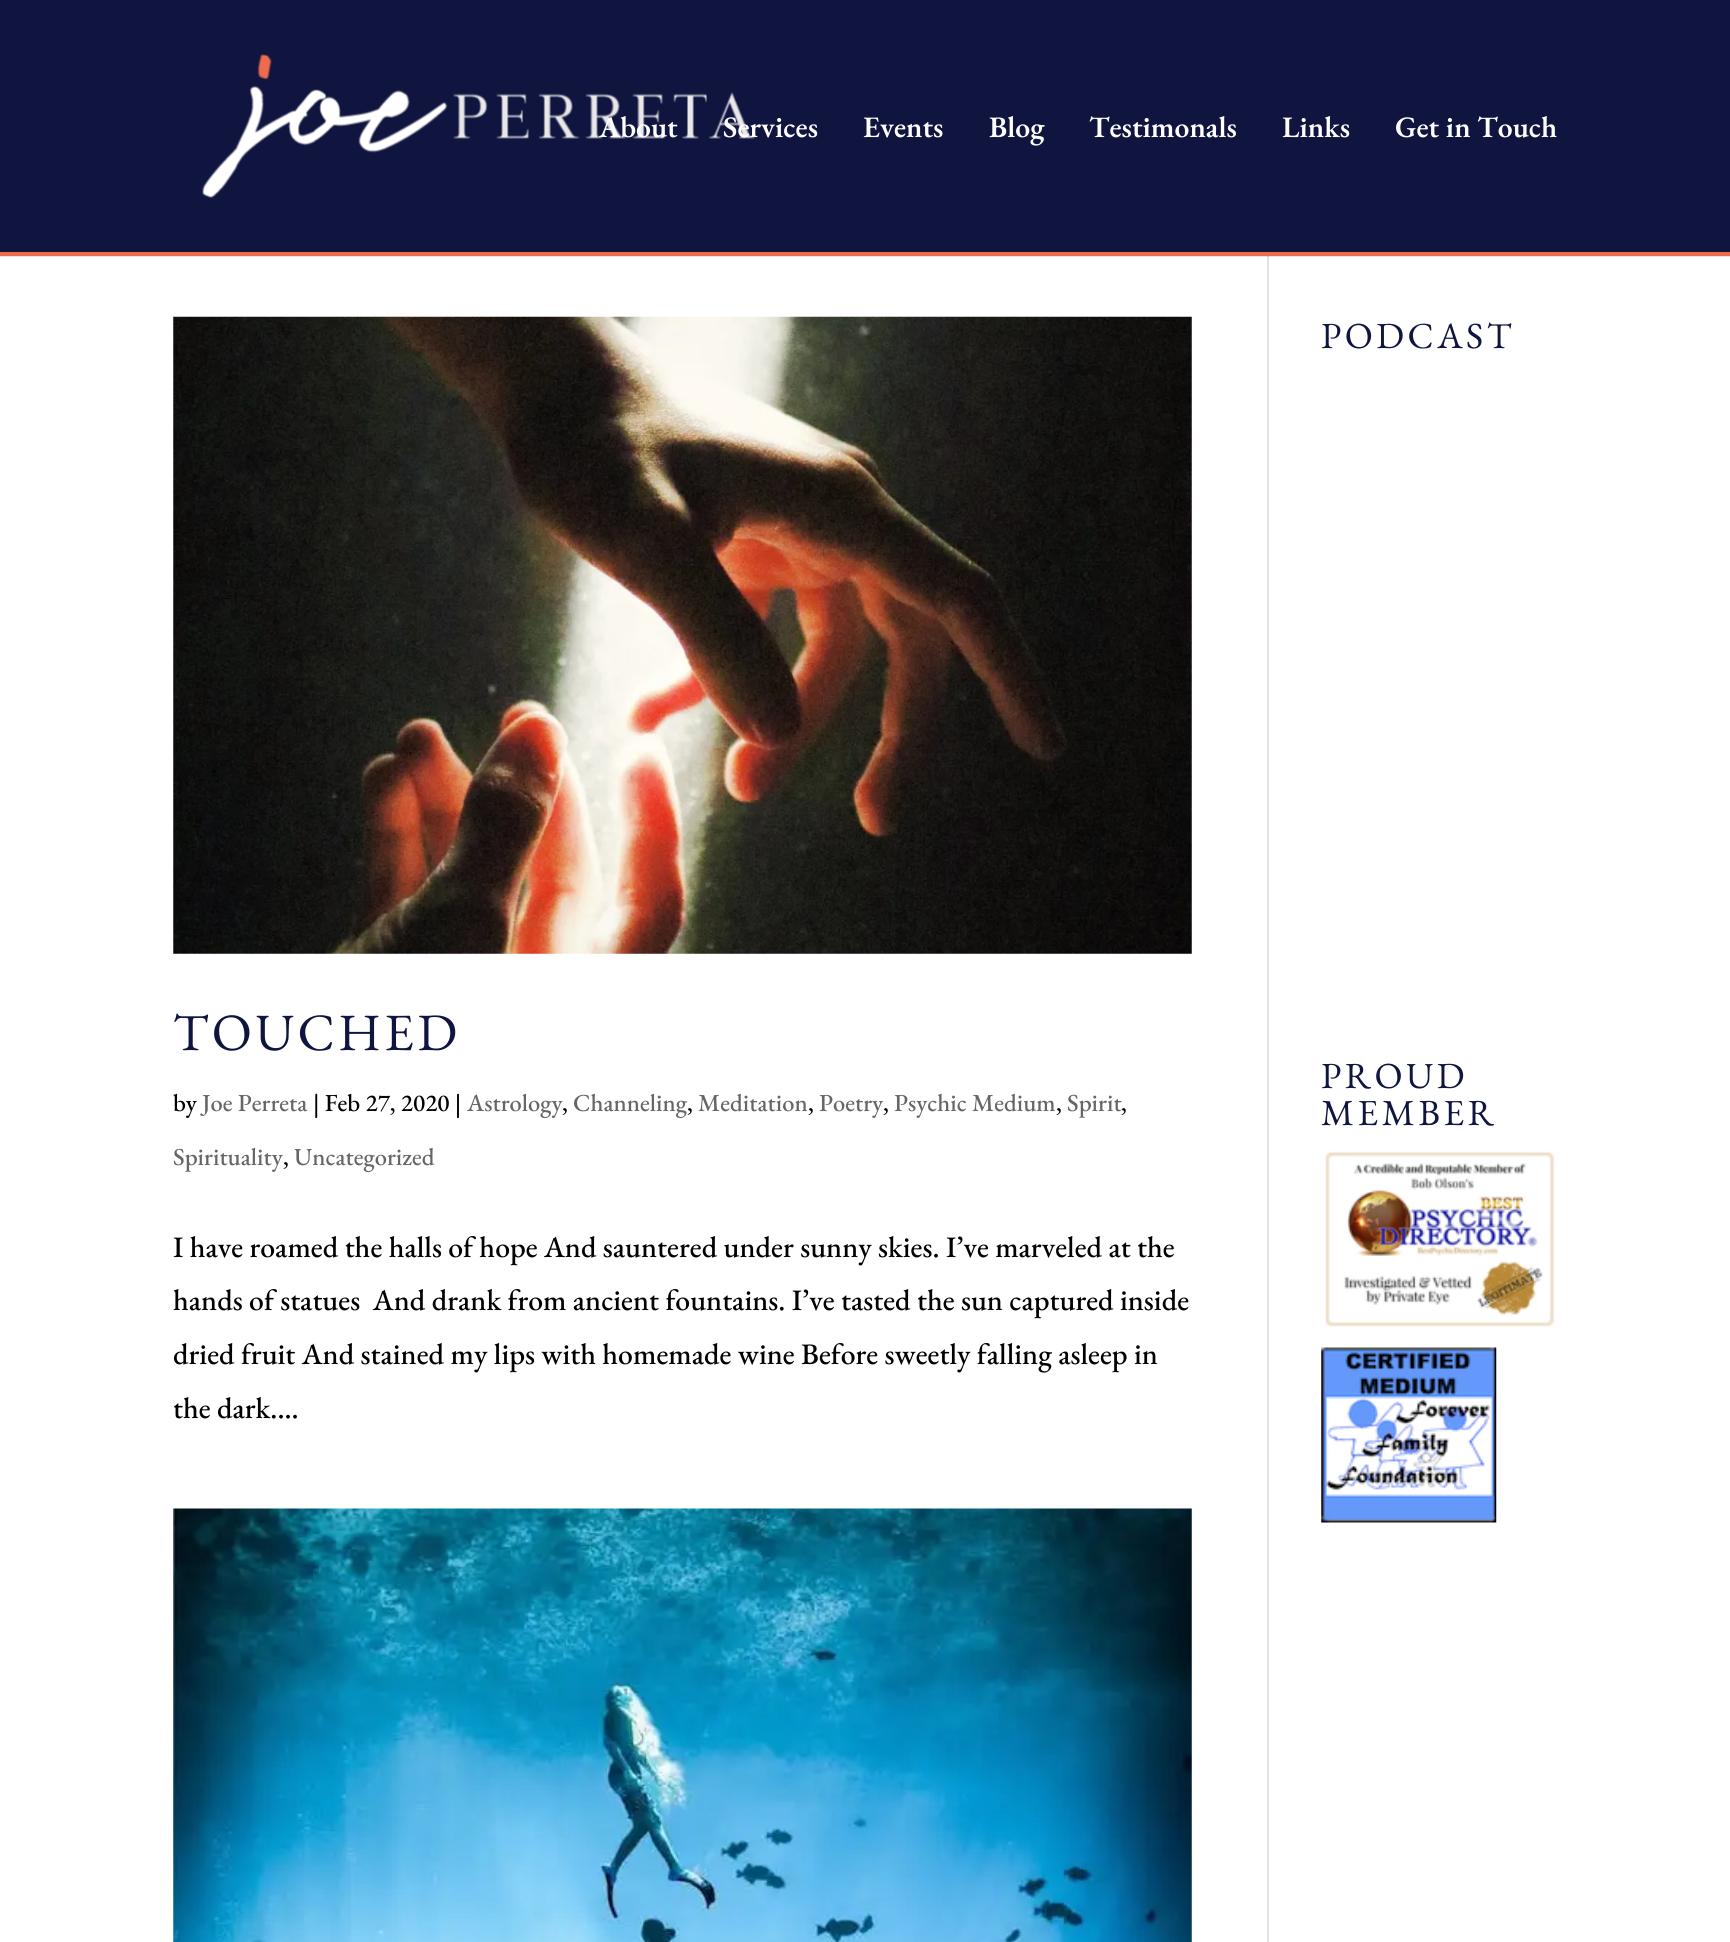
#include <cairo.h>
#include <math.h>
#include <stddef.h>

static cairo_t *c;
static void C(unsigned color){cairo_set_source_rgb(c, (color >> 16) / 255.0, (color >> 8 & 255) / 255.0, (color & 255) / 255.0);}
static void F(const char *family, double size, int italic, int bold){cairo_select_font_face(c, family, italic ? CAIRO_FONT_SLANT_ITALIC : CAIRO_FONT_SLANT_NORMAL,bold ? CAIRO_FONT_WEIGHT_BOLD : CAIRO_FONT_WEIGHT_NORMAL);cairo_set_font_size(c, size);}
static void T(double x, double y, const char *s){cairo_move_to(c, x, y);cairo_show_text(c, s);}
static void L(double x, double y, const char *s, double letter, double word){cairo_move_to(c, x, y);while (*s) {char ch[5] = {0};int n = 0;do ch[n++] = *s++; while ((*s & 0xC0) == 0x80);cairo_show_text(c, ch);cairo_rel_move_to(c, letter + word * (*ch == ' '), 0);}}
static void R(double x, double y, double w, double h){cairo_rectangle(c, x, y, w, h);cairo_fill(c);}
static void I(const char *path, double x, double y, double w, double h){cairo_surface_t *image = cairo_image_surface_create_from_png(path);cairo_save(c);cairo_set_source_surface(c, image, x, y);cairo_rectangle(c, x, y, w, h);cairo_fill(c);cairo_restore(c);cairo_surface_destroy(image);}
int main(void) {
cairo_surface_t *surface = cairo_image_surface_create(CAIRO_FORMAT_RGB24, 1730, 1942);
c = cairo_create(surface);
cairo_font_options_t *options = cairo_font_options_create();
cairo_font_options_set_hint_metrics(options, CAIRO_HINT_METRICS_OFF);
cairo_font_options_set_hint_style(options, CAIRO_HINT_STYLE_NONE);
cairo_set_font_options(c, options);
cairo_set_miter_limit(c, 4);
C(0xffffff);
cairo_paint(c);
C(0xe2e2e2);
R(1267,256,2,1686);
cairo_set_source_rgba(c,0,0,0,0.1);
cairo_new_path(c);
cairo_move_to(c,0,256);
cairo_line_to(c,0,257);
cairo_line_to(c,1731,257);
cairo_line_to(c,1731,2);
cairo_line_to(c,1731,256);
cairo_close_path(c);
cairo_fill(c);
C(0x101540);
R(0,0,1730,252);
C(0xec6c4d);
R(0,252,1730,4);
I("1.png",202,54,554,144);
F("EB Garamond SemiBold",29.75,0,0);
C(0xffffff);
T(599,137,"About");
T(723,137,"Services");
T(863,137,"Events");
T(989,137,"Blog");
T(1089,137,"Testimonals");
T(1282,137,"Links");
T(1395,137,"Get in Touch");
F("EB Garamond",36.75,0,0);
C(0x101540);
L(1321,348,"PODCAST",3.5,0);
L(1321,1088,"PROUD",3.5,0);
L(1321,1125,"MEMBER",3.5,0);
I("2.png",1325,1151,230,176);
I("3.png",1321,1347,176,176);
I("4.png",173,316,1019,638);
F("EB Garamond",52.5,0,0);
L(173,1050,"TOUCHED",3.5,0);
F("EB Garamond Medium",24.5,0,0);
C(0x000000);
T(173,1111,"by");
C(0x666666);
T(202,1111,"Joe Perreta");
C(0x000000);
T(313,1111,"| Feb 27, 2020 |");
C(0x666666);
T(467,1111,"Astrology");
C(0x000000);
T(562,1111,",");
C(0x666666);
T(573,1111,"Channeling");
C(0x000000);
T(687,1111,",");
C(0x666666);
T(698,1111,"Meditation");
C(0x000000);
T(808,1111,",");
C(0x666666);
T(819,1111,"Poetry");
C(0x000000);
T(883,1111,",");
C(0x666666);
T(894,1111,"Psychic Medium");
C(0x000000);
T(1056,1111,",");
C(0x666666);
T(1067,1111,"Spirit");
C(0x000000);
T(1121,1111,",");
C(0x666666);
T(173,1165,"Spirituality");
C(0x000000);
T(283,1165,",");
C(0x666666);
T(294,1165,"Uncategorized");
F("EB Garamond Medium",29.75,0,0);
C(0x000000);
T(173,1257,"I have roamed the halls of hope And sauntered under sunny skies. I’ve marveled at the");
T(173,1310,"hands of statues  And drank from ancient fountains. I’ve tasted the sun captured inside");
T(173,1364,"dried fruit And stained my lips with homemade wine Before sweetly falling asleep in");
T(173,1418,"the dark....");
I("5.png",173,1508,1019,434);
cairo_surface_write_to_png(surface, "o.png");
cairo_font_options_destroy(options);
cairo_destroy(c);
cairo_surface_destroy(surface);
return 0;
}
